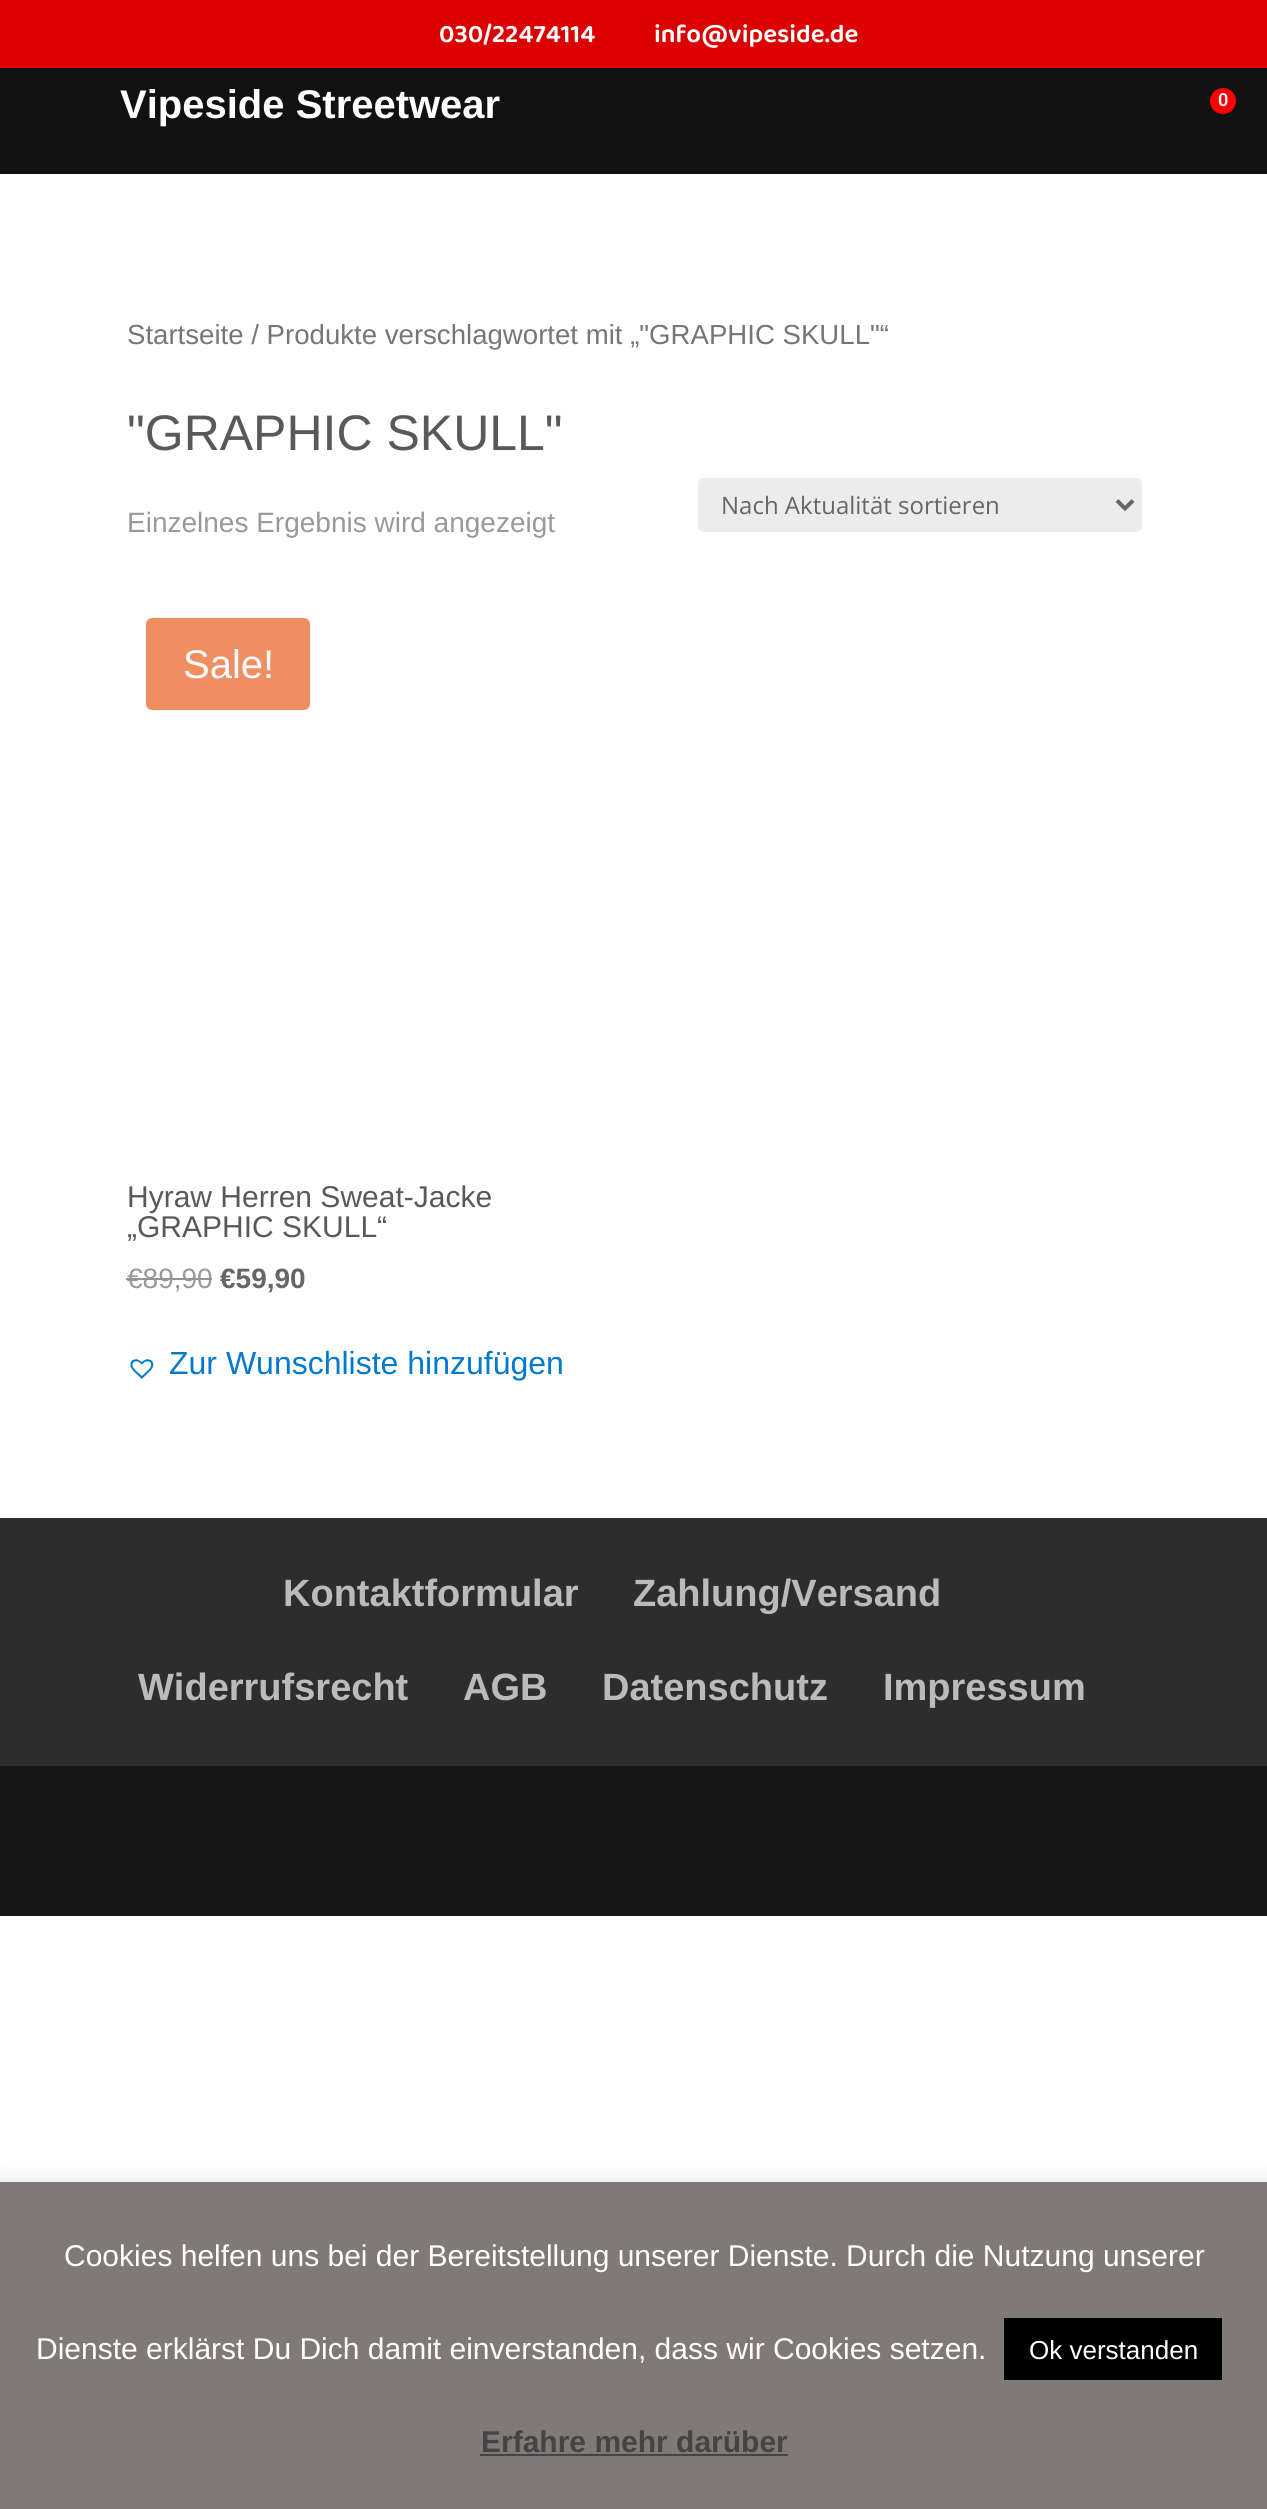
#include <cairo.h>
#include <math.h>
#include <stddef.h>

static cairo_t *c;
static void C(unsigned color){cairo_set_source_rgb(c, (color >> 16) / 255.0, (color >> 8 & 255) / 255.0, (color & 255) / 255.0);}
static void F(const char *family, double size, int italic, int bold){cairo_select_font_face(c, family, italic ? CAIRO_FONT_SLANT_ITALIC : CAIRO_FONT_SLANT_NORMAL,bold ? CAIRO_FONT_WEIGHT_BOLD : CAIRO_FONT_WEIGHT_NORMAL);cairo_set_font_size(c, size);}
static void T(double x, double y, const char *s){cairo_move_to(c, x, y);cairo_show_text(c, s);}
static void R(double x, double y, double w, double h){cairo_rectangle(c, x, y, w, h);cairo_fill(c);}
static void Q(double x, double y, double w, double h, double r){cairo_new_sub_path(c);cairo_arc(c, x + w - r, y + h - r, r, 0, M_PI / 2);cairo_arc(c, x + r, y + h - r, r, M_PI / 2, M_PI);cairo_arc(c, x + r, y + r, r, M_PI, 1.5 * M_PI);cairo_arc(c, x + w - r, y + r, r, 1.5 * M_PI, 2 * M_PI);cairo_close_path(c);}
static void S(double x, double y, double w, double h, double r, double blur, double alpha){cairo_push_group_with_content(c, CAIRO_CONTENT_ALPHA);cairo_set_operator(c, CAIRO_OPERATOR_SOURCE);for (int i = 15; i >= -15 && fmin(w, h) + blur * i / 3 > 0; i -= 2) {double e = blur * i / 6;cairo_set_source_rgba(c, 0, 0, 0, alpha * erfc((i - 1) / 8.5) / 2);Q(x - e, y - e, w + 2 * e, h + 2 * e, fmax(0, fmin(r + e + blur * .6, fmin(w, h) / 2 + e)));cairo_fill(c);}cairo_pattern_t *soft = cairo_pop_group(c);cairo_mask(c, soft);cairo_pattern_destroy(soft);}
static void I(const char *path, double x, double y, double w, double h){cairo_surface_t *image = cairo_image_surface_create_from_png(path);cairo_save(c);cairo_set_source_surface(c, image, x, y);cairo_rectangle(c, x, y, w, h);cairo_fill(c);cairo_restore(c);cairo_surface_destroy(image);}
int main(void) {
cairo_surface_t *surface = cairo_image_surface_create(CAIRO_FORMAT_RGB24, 1267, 2509);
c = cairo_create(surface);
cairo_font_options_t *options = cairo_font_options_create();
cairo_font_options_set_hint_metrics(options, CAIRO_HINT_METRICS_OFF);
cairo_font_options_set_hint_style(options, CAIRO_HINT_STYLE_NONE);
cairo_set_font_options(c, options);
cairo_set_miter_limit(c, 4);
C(0xffffff);
cairo_paint(c);
C(0xdd0000);
R(0,0,1267,68);
F("Baloo Thambi 2 SemiBold",26,0,0);
C(0xffffff);
T(439,42,"030/22474114");
T(654,42,"info@vipeside.de");
F("Liberation Sans",27.6,0,0);
C(0x767676);
T(127,344,"Startseite / Produkte verschlagwortet mit „\"GRAPHIC SKULL\"“");
F("Liberation Sans",50,0,0);
C(0x595959);
T(127,450,"\"GRAPHIC SKULL\"");
C(0xececec);
Q(698,478,444,54,6);
cairo_fill(c);
cairo_new_path(c);
cairo_move_to(c,1117,500.5);
cairo_line_to(c,1125,508.5);
cairo_line_to(c,1133,500.5);
C(0x666666);
cairo_set_line_width(c,4);
cairo_stroke(c);
F("Open Sans",24,0,0);
T(721,514,"Nach Aktualität sortieren");
F("Liberation Sans",28,0,0);
C(0x999999);
T(127,532,"Einzelnes Ergebnis wird angezeigt");
C(0xef8f61);
Q(146,618,164,92,6);
cairo_fill(c);
F("Liberation Sans",40,0,0);
C(0xffffff);
T(183,678,"Sale!");
F("Liberation Sans",30,0,0);
C(0x595959);
T(127,1207,"Hyraw Herren Sweat-Jacke");
T(127,1237,"„GRAPHIC SKULL“");
F("Liberation Sans",28,0,0);
C(0x999999);
T(127,1288,"€89,90");
C(0x949494);
R(126,1278,86,2);
F("Liberation Sans",28,0,1);
C(0x666666);
T(220,1288,"€59,90");
I("1.png",130,1359,24,20);
F("Liberation Sans",32,0,0);
C(0x007acc);
T(169,1374,"Zur Wunschliste hinzufügen");
C(0x2d2d2d);
R(0,1518,1267,248);
F("Liberation Sans",38,0,1);
C(0xbbbbbb);
T(283,1606,"Kontaktformular");
T(633,1606,"Zahlung/Versand");
T(138,1700,"Widerrufsrecht");
T(463,1700,"AGB");
T(602,1700,"Datenschutz");
T(883,1700,"Impressum");
C(0x171717);
R(0,1766,1267,150);
C(0xacabab);
S(0,2180,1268,328,0,10,.3);
C(0x7f7977);
R(0,2182,1267,327);
F("Liberation Sans",30,0,0);
C(0xffffff);
T(64,2266,"Cookies helfen uns bei der Bereitstellung unserer Dienste. Durch die Nutzung unserer");
T(36,2359,"Dienste erklärst Du Dich damit einverstanden, dass wir Cookies setzen.");
C(0x000000);
R(1004,2318,218,62);
F("Liberation Sans",26,0,0);
C(0xffffff);
T(1029,2359,"Ok verstanden");
F("Liberation Sans",30,0,1);
C(0x444444);
T(481,2452,"Erfahre mehr darüber");
R(480,2454,308,2);
C(0x111111);
R(0,68,1267,106);
F("Liberation Sans",40,0,1);
C(0xffffff);
T(120,118,"Vipeside Streetwear");
C(0xff0000);
cairo_new_path(c);
cairo_arc(c,1223,101,13,0,2 * M_PI);
cairo_fill(c);
F("Roboto SemiBold",18,0,0);
C(0xffffff);
T(1218,106,"0");
cairo_surface_write_to_png(surface, "o.png");
cairo_font_options_destroy(options);
cairo_destroy(c);
cairo_surface_destroy(surface);
return 0;
}
